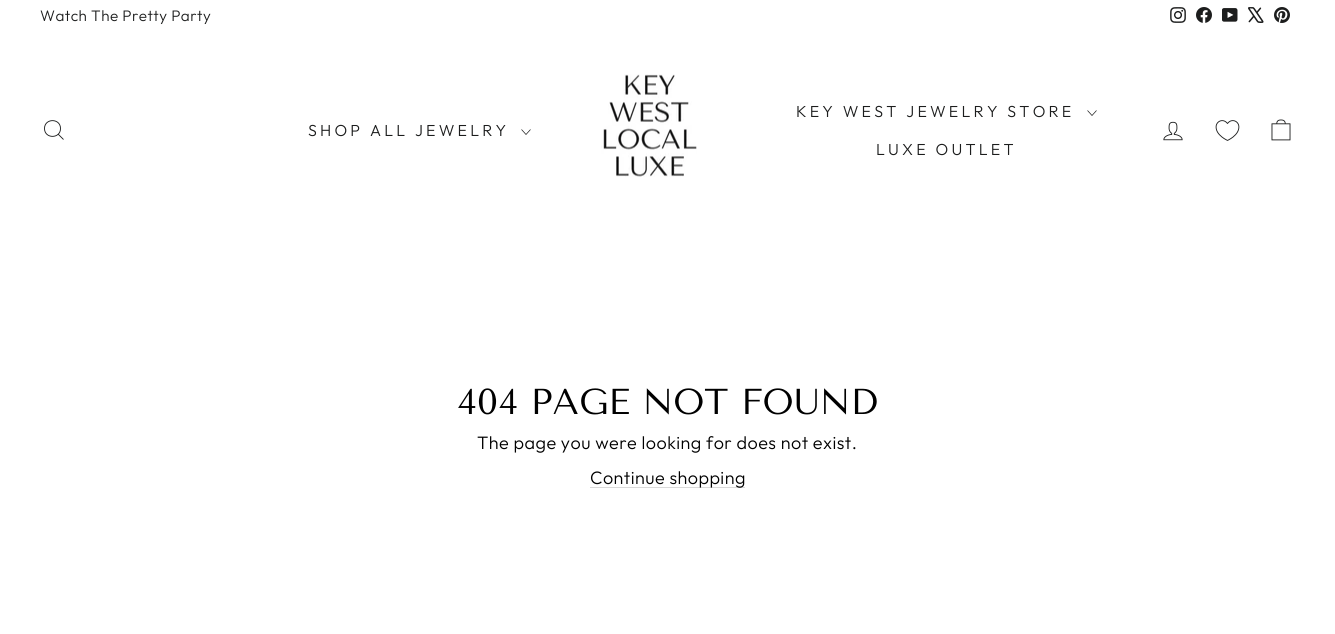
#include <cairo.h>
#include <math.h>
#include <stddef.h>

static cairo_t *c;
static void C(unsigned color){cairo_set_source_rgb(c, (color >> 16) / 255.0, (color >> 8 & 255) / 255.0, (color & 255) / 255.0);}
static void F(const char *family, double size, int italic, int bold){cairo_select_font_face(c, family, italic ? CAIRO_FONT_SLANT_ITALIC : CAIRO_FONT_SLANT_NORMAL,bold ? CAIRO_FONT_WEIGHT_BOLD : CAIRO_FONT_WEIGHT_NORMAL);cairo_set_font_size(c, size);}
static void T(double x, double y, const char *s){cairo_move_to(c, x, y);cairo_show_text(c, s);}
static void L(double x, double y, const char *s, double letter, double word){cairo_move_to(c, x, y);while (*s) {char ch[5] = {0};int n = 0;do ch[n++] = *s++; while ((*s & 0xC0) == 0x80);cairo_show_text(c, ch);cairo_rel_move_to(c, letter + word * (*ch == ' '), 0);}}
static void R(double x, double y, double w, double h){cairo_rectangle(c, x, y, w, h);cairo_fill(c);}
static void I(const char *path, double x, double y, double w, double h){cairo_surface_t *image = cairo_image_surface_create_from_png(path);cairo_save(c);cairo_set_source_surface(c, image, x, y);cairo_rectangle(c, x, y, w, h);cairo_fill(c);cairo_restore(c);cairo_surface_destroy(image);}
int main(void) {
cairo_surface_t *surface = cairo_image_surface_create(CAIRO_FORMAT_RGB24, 1335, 634);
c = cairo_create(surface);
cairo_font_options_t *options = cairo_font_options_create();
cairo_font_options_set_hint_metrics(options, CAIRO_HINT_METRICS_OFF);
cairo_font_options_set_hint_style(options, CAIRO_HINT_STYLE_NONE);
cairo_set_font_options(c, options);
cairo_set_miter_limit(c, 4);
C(0xffffff);
cairo_paint(c);
F("Outfit Light",15.25,0,0);
C(0x1c1d1d);
L(40,21,"Watch The Pretty Party",.45,0);
I("1.png",1170,7,16,16);
I("2.png",1196,7,16,16);
I("3.png",1222,8,16,14);
I("4.png",1248,7,16,16);
I("5.png",1274,7,16,16);
cairo_new_path(c);
cairo_move_to(c,60.5,128.5);
cairo_curve_to(c,60.5,139,44.5,139,44.5,128.5);
cairo_curve_to(c,44.5,118,60.5,118,60.5,128.5);
cairo_close_path(c);
cairo_move_to(c,63.5,139.5);
cairo_line_to(c,58.5,134.5);
cairo_set_line_width(c,.9);
cairo_stroke(c);
F("Outfit Light",16,0,0);
L(308,136,"SHOP ALL JEWELRY",3.2,0);
cairo_new_path(c);
cairo_move_to(c,521.5,129.5);
cairo_line_to(c,526,134.5);
cairo_line_to(c,530.5,129.5);
cairo_set_line_width(c,.7);
cairo_stroke(c);
I("6.png",601,74,96,103);
L(796,117,"KEY WEST JEWELRY STORE",3.2,0);
cairo_new_path(c);
cairo_move_to(c,1087.5,110.5);
cairo_line_to(c,1092,115.5);
cairo_line_to(c,1096.5,110.5);
cairo_stroke(c);
L(876,155,"LUXE OUTLET",3.2,0);
I("7.png",1163,121,20,20);
I("8.png",1215,120,25,21);
I("9.png",1271,119,20,22);
F("Tenor Sans",36,0,0);
C(0x000000);
T(457,414,"404 PAGE NOT FOUND");
F("Outfit Light",18,0,0);
L(477,449,"The page you were looking for does not exist.",.45,0);
C(0xd9d9d9);
R(590,487,155,1);
C(0x000000);
L(590,484,"Continue shopping",.45,0);
cairo_surface_write_to_png(surface, "o.png");
cairo_font_options_destroy(options);
cairo_destroy(c);
cairo_surface_destroy(surface);
return 0;
}
